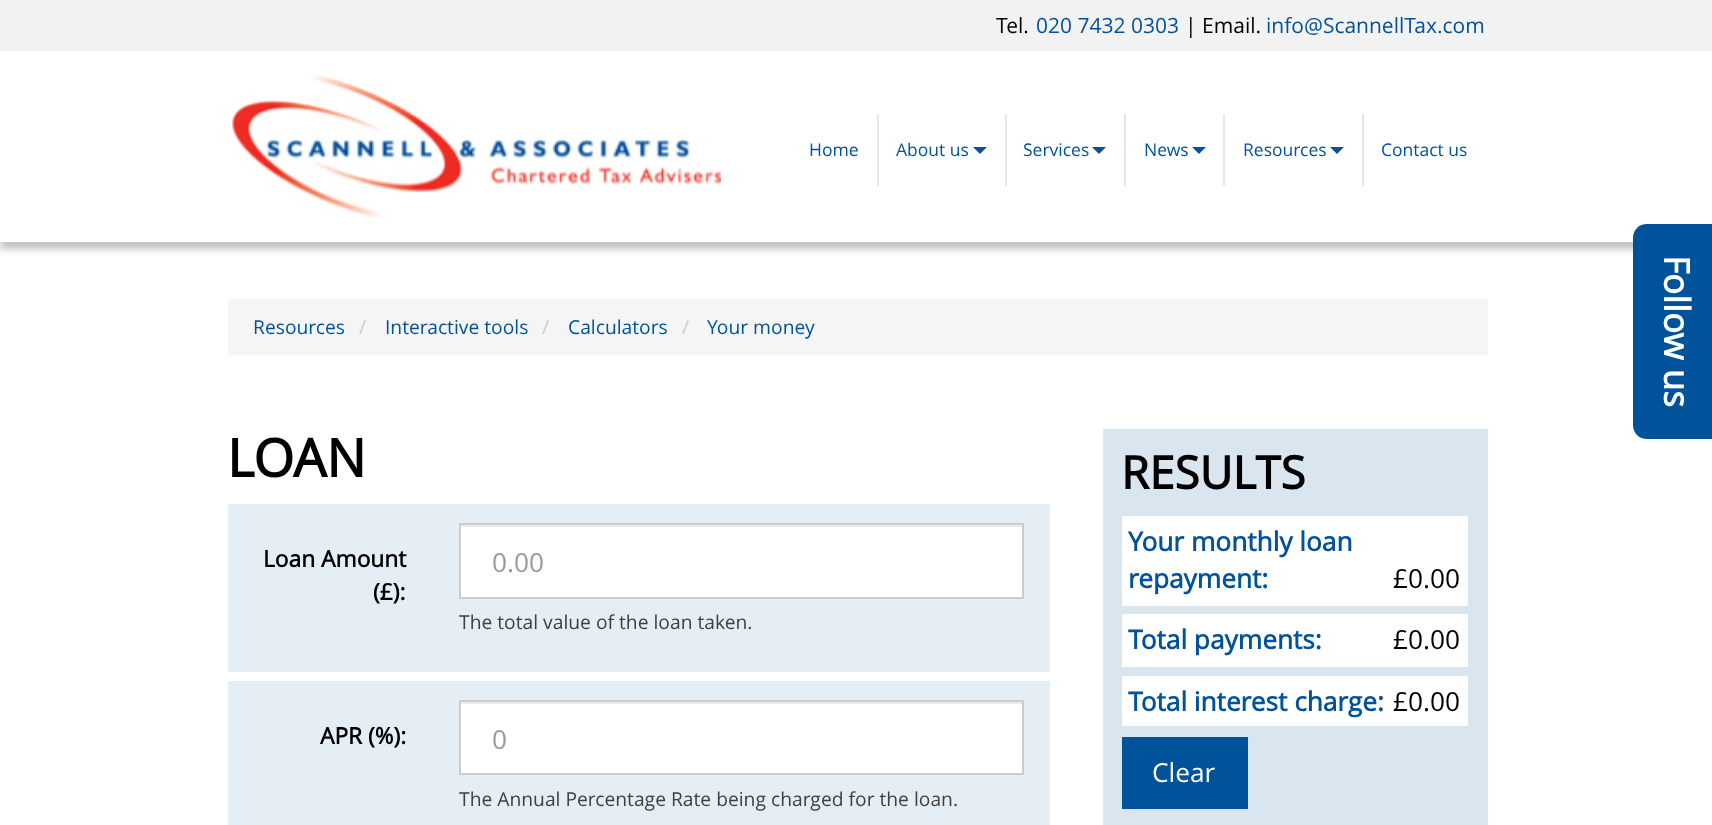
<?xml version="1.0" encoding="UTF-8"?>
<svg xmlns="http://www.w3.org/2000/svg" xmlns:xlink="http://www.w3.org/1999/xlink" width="1712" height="825">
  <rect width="100%" height="100%" fill="#ffffff" />
  <rect y="7" width="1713" height="242" fill="#000000" fill-opacity="0.24" filter="blur(3.5px)" />
  <rect y="51" width="1712" height="191" fill="#ffffff" />
  <rect width="1712" height="51" fill="#f2f2f2" />
  <image x="232" y="74" width="489" height="144" xlink:href="image1.png" />
  <rect x="877" y="114" width="2" height="72" fill="#e6e6e6" />
  <path d="M 973 147 h 14 l -7 7 z" fill="#00529b" />
  <rect x="1005" y="114" width="2" height="72" fill="#e6e6e6" />
  <path d="M 1092 147 h 14 l -7 7 z" fill="#00529b" />
  <rect x="1124" y="114" width="2" height="72" fill="#e6e6e6" />
  <path d="M 1192 147 h 14 l -7 7 z" fill="#00529b" />
  <rect x="1223" y="114" width="2" height="72" fill="#e6e6e6" />
  <path d="M 1330 147 h 14 l -7 7 z" fill="#00529b" />
  <rect x="1362" y="114" width="2" height="72" fill="#e6e6e6" />
  <rect x="228" y="299" width="1260" height="56" fill="#f5f5f5" />
  <rect x="228" y="504" width="822" height="168" fill="#e6eef5" />
  <rect x="461" y="527" width="561" height="70" fill="#ffffff" />
  <rect x="460" y="525" width="562" height="2" fill="#ececec" />
  <rect x="460" y="524" width="563" height="74" fill="none" stroke="#cccccc" stroke-width="2" />
  <rect x="228" y="681" width="822" height="144" fill="#e6eef5" />
  <rect x="461" y="704" width="561" height="69" fill="#ffffff" />
  <rect x="460" y="702" width="562" height="2" fill="#ececec" />
  <rect x="460" y="701" width="563" height="73" fill="none" stroke="#cccccc" stroke-width="2" />
  <rect x="1103" y="429" width="385" height="396" fill="#d9e6f0" />
  <rect x="1122" y="516" width="346" height="90" fill="#ffffff" />
  <rect x="1122" y="614" width="346" height="53" fill="#ffffff" />
  <rect x="1122" y="676" width="346" height="50" fill="#ffffff" />
  <rect x="1122" y="737" width="126" height="72" fill="#00529b" />
  <path d="M 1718 224 v 215 h -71 c -8 0 -14 -6 -14 -14 v -187 c 0 -8 6 -14 14 -14 z" fill="#00529b" />
  <text x="996" y="33" style="font-family: Open Sans; font-size: 21px; fill: #000000">Tel.</text>
  <text x="1036" y="33" style="font-family: Open Sans; font-size: 21px; fill: #00529b">020 7432 0303</text>
  <text x="1185" y="33" style="font-family: Open Sans; font-size: 21px; fill: #000000">| Email.</text>
  <text x="1266" y="33" style="font-family: Open Sans; font-size: 21px; fill: #00529b">info@ScannellTax.com</text>
  <text x="809" y="156" style="font-family: Open Sans; font-size: 17.5px; fill: #00529b">Home</text>
  <text x="896" y="156" style="font-family: Open Sans; font-size: 17.5px; fill: #00529b">About us</text>
  <text x="1023" y="156" style="font-family: Open Sans; font-size: 17.5px; fill: #00529b">Services</text>
  <text x="1144" y="156" style="font-family: Open Sans; font-size: 17.5px; fill: #00529b">News</text>
  <text x="1243" y="156" style="font-family: Open Sans; font-size: 17.5px; fill: #00529b">Resources</text>
  <text x="1381" y="156" style="font-family: Open Sans; font-size: 17.5px; fill: #00529b">Contact us</text>
  <text x="253" y="334" style="font-family: Open Sans; font-size: 19.25px; fill: #00529b">Resources</text>
  <text x="359" y="334" style="font-family: Open Sans; font-size: 19.25px; fill: #cccccc">/</text>
  <text x="385" y="334" style="font-family: Open Sans; font-size: 19.25px; fill: #00529b">Interactive tools</text>
  <text x="542" y="334" style="font-family: Open Sans; font-size: 19.25px; fill: #cccccc">/</text>
  <text x="568" y="334" style="font-family: Open Sans; font-size: 19.25px; fill: #00529b">Calculators</text>
  <text x="682" y="334" style="font-family: Open Sans; font-size: 19.25px; fill: #cccccc">/</text>
  <text x="707" y="334" style="font-family: Open Sans; font-size: 19.25px; fill: #00529b">Your money</text>
  <text x="227" y="477" style="font-family: Open Sans; font-size: 52.5px; font-weight: bold; fill: #000000">LOAN</text>
  <text x="263" y="567" style="font-family: Open Sans; font-size: 22.75px; font-weight: bold; fill: #000000">Loan Amount</text>
  <text x="373" y="600" style="font-family: Open Sans; font-size: 22.75px; font-weight: bold; fill: #000000">(£):</text>
  <text x="492" y="572" style="font-family: Open Sans; font-size: 26.25px; fill: #999999">0.00</text>
  <text x="459" y="629" style="font-family: Open Sans; font-size: 19.25px; fill: #404040">The total value of the loan taken.</text>
  <text x="320" y="744" style="font-family: Open Sans; font-size: 22.75px; font-weight: bold; fill: #000000">APR (%):</text>
  <text x="492" y="749" style="font-family: Open Sans; font-size: 26.25px; fill: #999999">0</text>
  <text x="459" y="806" style="font-family: Open Sans; font-size: 19.25px; fill: #404040">The Annual Percentage Rate being charged for the loan.</text>
  <text x="1121" y="489" style="font-family: Open Sans; font-size: 45.5px; font-weight: bold; fill: #000000">RESULTS</text>
  <text x="1128" y="551" style="font-family: Open Sans; font-size: 26.25px; font-weight: bold; fill: #00529b">Your monthly loan</text>
  <text x="1128" y="588" style="font-family: Open Sans; font-size: 26.25px; font-weight: bold; fill: #00529b">repayment:</text>
  <text x="1393" y="588" style="font-family: Open Sans; font-size: 26.25px; fill: #000000">£0.00</text>
  <text x="1128" y="649" style="font-family: Open Sans; font-size: 26.25px; font-weight: bold; fill: #00529b">Total payments:</text>
  <text x="1393" y="649" style="font-family: Open Sans; font-size: 26.25px; fill: #000000">£0.00</text>
  <text x="1128" y="711" style="font-family: Open Sans; font-size: 26.25px; font-weight: bold; fill: #00529b">Total interest charge:</text>
  <text x="1393" y="711" style="font-family: Open Sans; font-size: 26.25px; fill: #000000">£0.00</text>
  <text x="1152" y="782" style="font-family: Open Sans; font-size: 26.25px; fill: #ffffff">Clear</text>
  <text x="1664" y="255" transform="rotate(90 1664 255)" style="font-family: Open Sans; font-size: 35px; font-weight: bold; fill: #ffffff">Follow us</text>
</svg>
